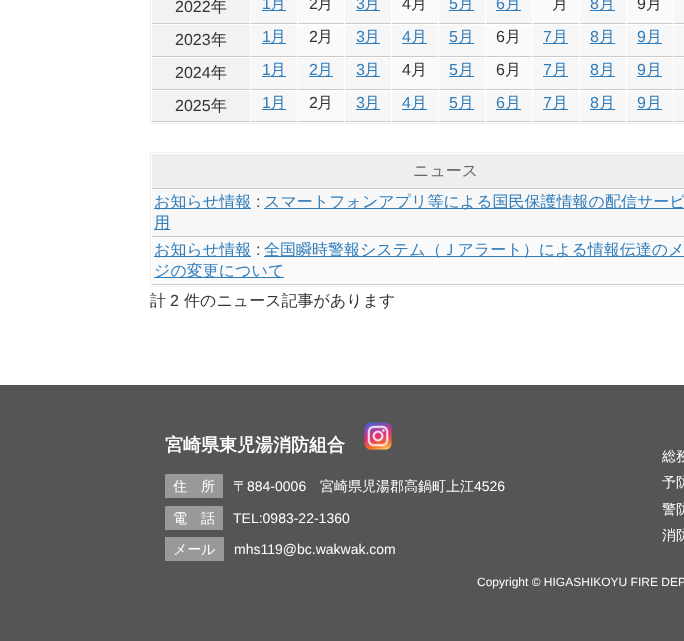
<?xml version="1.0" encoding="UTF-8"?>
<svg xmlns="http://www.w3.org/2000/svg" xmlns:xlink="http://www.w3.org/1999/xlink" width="684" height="641">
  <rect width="100%" height="100%" fill="#ffffff" />
  <rect x="150.5" y="-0.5" width="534" height="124" fill="none" stroke="#eeeeee" />
  <rect x="152" width="98" height="23" fill="#f2f2f2" />
  <rect x="152" y="23" width="98" height="1" fill="#cacaca" />
  <rect x="251" width="46" height="23" fill="#f7f7f7" />
  <rect x="251" y="23" width="46" height="1" fill="#cacaca" />
  <rect x="262" y="10" width="24" height="1" fill="#2f7cbb" />
  <rect x="298" width="46" height="23" fill="#fafafa" />
  <rect x="298" y="23" width="46" height="1" fill="#cacaca" />
  <rect x="345" width="46" height="23" fill="#f7f7f7" />
  <rect x="345" y="23" width="46" height="1" fill="#cacaca" />
  <rect x="356" y="10" width="24" height="1" fill="#2f7cbb" />
  <rect x="392" width="46" height="23" fill="#fafafa" />
  <rect x="392" y="23" width="46" height="1" fill="#cacaca" />
  <rect x="439" width="46" height="23" fill="#f7f7f7" />
  <rect x="439" y="23" width="46" height="1" fill="#cacaca" />
  <rect x="449" y="10" width="25" height="1" fill="#2f7cbb" />
  <rect x="486" width="46" height="23" fill="#f7f7f7" />
  <rect x="486" y="23" width="46" height="1" fill="#cacaca" />
  <rect x="496" y="10" width="25" height="1" fill="#2f7cbb" />
  <rect x="533" width="46" height="23" fill="#fafafa" />
  <rect x="533" y="23" width="46" height="1" fill="#cacaca" />
  <rect x="580" width="46" height="23" fill="#f7f7f7" />
  <rect x="580" y="23" width="46" height="1" fill="#cacaca" />
  <rect x="590" y="10" width="25" height="1" fill="#2f7cbb" />
  <rect x="627" width="46" height="23" fill="#fafafa" />
  <rect x="627" y="23" width="46" height="1" fill="#cacaca" />
  <rect x="674" width="10" height="23" fill="#f7f7f7" />
  <rect x="674" y="23" width="10" height="1" fill="#cacaca" />
  <rect x="152" y="25" width="98" height="31" fill="#f2f2f2" />
  <rect x="152" y="56" width="98" height="1" fill="#cacaca" />
  <rect x="251" y="25" width="46" height="31" fill="#f7f7f7" />
  <rect x="251" y="56" width="46" height="1" fill="#cacaca" />
  <rect x="262" y="43" width="24" height="1" fill="#2f7cbb" />
  <rect x="298" y="25" width="46" height="31" fill="#fafafa" />
  <rect x="298" y="56" width="46" height="1" fill="#cacaca" />
  <rect x="345" y="25" width="46" height="31" fill="#f7f7f7" />
  <rect x="345" y="56" width="46" height="1" fill="#cacaca" />
  <rect x="356" y="43" width="24" height="1" fill="#2f7cbb" />
  <rect x="392" y="25" width="46" height="31" fill="#f7f7f7" />
  <rect x="392" y="56" width="46" height="1" fill="#cacaca" />
  <rect x="402" y="43" width="25" height="1" fill="#2f7cbb" />
  <rect x="439" y="25" width="46" height="31" fill="#f7f7f7" />
  <rect x="439" y="56" width="46" height="1" fill="#cacaca" />
  <rect x="449" y="43" width="25" height="1" fill="#2f7cbb" />
  <rect x="486" y="25" width="46" height="31" fill="#fafafa" />
  <rect x="486" y="56" width="46" height="1" fill="#cacaca" />
  <rect x="533" y="25" width="46" height="31" fill="#f7f7f7" />
  <rect x="533" y="56" width="46" height="1" fill="#cacaca" />
  <rect x="543" y="43" width="25" height="1" fill="#2f7cbb" />
  <rect x="580" y="25" width="46" height="31" fill="#f7f7f7" />
  <rect x="580" y="56" width="46" height="1" fill="#cacaca" />
  <rect x="590" y="43" width="25" height="1" fill="#2f7cbb" />
  <rect x="627" y="25" width="46" height="31" fill="#f7f7f7" />
  <rect x="627" y="56" width="46" height="1" fill="#cacaca" />
  <rect x="637" y="43" width="25" height="1" fill="#2f7cbb" />
  <rect x="674" y="25" width="10" height="31" fill="#f7f7f7" />
  <rect x="674" y="56" width="10" height="1" fill="#cacaca" />
  <rect x="152" y="58" width="98" height="31" fill="#f2f2f2" />
  <rect x="152" y="89" width="98" height="1" fill="#cacaca" />
  <rect x="251" y="58" width="46" height="31" fill="#f7f7f7" />
  <rect x="251" y="89" width="46" height="1" fill="#cacaca" />
  <rect x="262" y="76" width="24" height="1" fill="#2f7cbb" />
  <rect x="298" y="58" width="46" height="31" fill="#f7f7f7" />
  <rect x="298" y="89" width="46" height="1" fill="#cacaca" />
  <rect x="309" y="76" width="24" height="1" fill="#2f7cbb" />
  <rect x="345" y="58" width="46" height="31" fill="#f7f7f7" />
  <rect x="345" y="89" width="46" height="1" fill="#cacaca" />
  <rect x="356" y="76" width="24" height="1" fill="#2f7cbb" />
  <rect x="392" y="58" width="46" height="31" fill="#fafafa" />
  <rect x="392" y="89" width="46" height="1" fill="#cacaca" />
  <rect x="439" y="58" width="46" height="31" fill="#f7f7f7" />
  <rect x="439" y="89" width="46" height="1" fill="#cacaca" />
  <rect x="449" y="76" width="25" height="1" fill="#2f7cbb" />
  <rect x="486" y="58" width="46" height="31" fill="#fafafa" />
  <rect x="486" y="89" width="46" height="1" fill="#cacaca" />
  <rect x="533" y="58" width="46" height="31" fill="#f7f7f7" />
  <rect x="533" y="89" width="46" height="1" fill="#cacaca" />
  <rect x="543" y="76" width="25" height="1" fill="#2f7cbb" />
  <rect x="580" y="58" width="46" height="31" fill="#f7f7f7" />
  <rect x="580" y="89" width="46" height="1" fill="#cacaca" />
  <rect x="590" y="76" width="25" height="1" fill="#2f7cbb" />
  <rect x="627" y="58" width="46" height="31" fill="#f7f7f7" />
  <rect x="627" y="89" width="46" height="1" fill="#cacaca" />
  <rect x="637" y="76" width="25" height="1" fill="#2f7cbb" />
  <rect x="674" y="58" width="10" height="31" fill="#f7f7f7" />
  <rect x="674" y="89" width="10" height="1" fill="#cacaca" />
  <rect x="152" y="91" width="98" height="30" fill="#f2f2f2" />
  <rect x="152" y="121" width="98" height="1" fill="#cacaca" />
  <rect x="251" y="91" width="46" height="30" fill="#f7f7f7" />
  <rect x="251" y="121" width="46" height="1" fill="#cacaca" />
  <rect x="262" y="109" width="24" height="1" fill="#2f7cbb" />
  <rect x="298" y="91" width="46" height="30" fill="#fafafa" />
  <rect x="298" y="121" width="46" height="1" fill="#cacaca" />
  <rect x="345" y="91" width="46" height="30" fill="#f7f7f7" />
  <rect x="345" y="121" width="46" height="1" fill="#cacaca" />
  <rect x="356" y="109" width="24" height="1" fill="#2f7cbb" />
  <rect x="392" y="91" width="46" height="30" fill="#f7f7f7" />
  <rect x="392" y="121" width="46" height="1" fill="#cacaca" />
  <rect x="402" y="109" width="25" height="1" fill="#2f7cbb" />
  <rect x="439" y="91" width="46" height="30" fill="#f7f7f7" />
  <rect x="439" y="121" width="46" height="1" fill="#cacaca" />
  <rect x="449" y="109" width="25" height="1" fill="#2f7cbb" />
  <rect x="486" y="91" width="46" height="30" fill="#f7f7f7" />
  <rect x="486" y="121" width="46" height="1" fill="#cacaca" />
  <rect x="496" y="109" width="25" height="1" fill="#2f7cbb" />
  <rect x="533" y="91" width="46" height="30" fill="#f7f7f7" />
  <rect x="533" y="121" width="46" height="1" fill="#cacaca" />
  <rect x="543" y="109" width="25" height="1" fill="#2f7cbb" />
  <rect x="580" y="91" width="46" height="30" fill="#f7f7f7" />
  <rect x="580" y="121" width="46" height="1" fill="#cacaca" />
  <rect x="590" y="109" width="25" height="1" fill="#2f7cbb" />
  <rect x="627" y="91" width="46" height="30" fill="#f7f7f7" />
  <rect x="627" y="121" width="46" height="1" fill="#cacaca" />
  <rect x="637" y="109" width="25" height="1" fill="#2f7cbb" />
  <rect x="674" y="91" width="10" height="30" fill="#f7f7f7" />
  <rect x="674" y="121" width="10" height="1" fill="#cacaca" />
  <rect x="150.5" y="152.5" width="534" height="134" fill="none" stroke="#eeeeee" />
  <rect x="152" y="154" width="532" height="34" fill="#eeeeee" />
  <rect x="152" y="188" width="532" height="1" fill="#cccccc" />
  <rect x="152" y="190" width="532" height="46" fill="#f7f7f7" />
  <rect x="152" y="236" width="532" height="1" fill="#cacaca" />
  <rect x="154" y="208" width="97" height="1" fill="#2f7cbb" />
  <rect x="264" y="208" width="420" height="1" fill="#2f7cbb" />
  <rect x="154" y="229" width="16" height="1" fill="#2f7cbb" />
  <rect x="152" y="238" width="532" height="46" fill="#fafafa" />
  <rect x="152" y="284" width="532" height="1" fill="#cacaca" />
  <rect x="154" y="256" width="97" height="1" fill="#2f7cbb" />
  <rect x="264" y="256" width="420" height="1" fill="#2f7cbb" />
  <rect x="154" y="277" width="130" height="1" fill="#2f7cbb" />
  <rect y="385" width="684" height="256" fill="#555555" />
  <image x="364" y="422" width="29" height="29" xlink:href="image1.png" />
  <rect x="165" y="474" width="58" height="24" fill="#999999" />
  <rect x="165" y="506" width="58" height="24" fill="#999999" />
  <rect x="165" y="537" width="59" height="24" fill="#999999" />
  <text x="175" y="12" style="font-family: Liberation Sans; font-size: 16px; fill: #333333">2022</text>
  <text x="211" y="12" style="font-family: WenQuanYi Zen Hei; font-size: 16px; font-weight: 500; fill: #333333">年</text>
  <text x="262" y="9" style="font-family: Liberation Sans; font-size: 16px; fill: #2f7cbb">1</text>
  <text x="270" y="9" style="font-family: WenQuanYi Zen Hei; font-size: 16px; font-weight: 500; fill: #2f7cbb">月</text>
  <text x="309" y="9" style="font-family: Liberation Sans; font-size: 16px; fill: #333333">2</text>
  <text x="317" y="9" style="font-family: WenQuanYi Zen Hei; font-size: 16px; font-weight: 500; fill: #333333">月</text>
  <text x="356" y="9" style="font-family: Liberation Sans; font-size: 16px; fill: #2f7cbb">3</text>
  <text x="364" y="9" style="font-family: WenQuanYi Zen Hei; font-size: 16px; font-weight: 500; fill: #2f7cbb">月</text>
  <text x="402" y="9" style="font-family: Liberation Sans; font-size: 16px; fill: #333333">4</text>
  <text x="411" y="9" style="font-family: WenQuanYi Zen Hei; font-size: 16px; font-weight: 500; fill: #333333">月</text>
  <text x="449" y="9" style="font-family: Liberation Sans; font-size: 16px; fill: #2f7cbb">5</text>
  <text x="458" y="9" style="font-family: WenQuanYi Zen Hei; font-size: 16px; font-weight: 500; fill: #2f7cbb">月</text>
  <text x="496" y="9" style="font-family: Liberation Sans; font-size: 16px; fill: #2f7cbb">6</text>
  <text x="505" y="9" style="font-family: WenQuanYi Zen Hei; font-size: 16px; font-weight: 500; fill: #2f7cbb">月</text>
  <text x="552" y="9" style="font-family: WenQuanYi Zen Hei; font-size: 16px; font-weight: 500; fill: #333333">月</text>
  <text x="590" y="9" style="font-family: Liberation Sans; font-size: 16px; fill: #2f7cbb">8</text>
  <text x="599" y="9" style="font-family: WenQuanYi Zen Hei; font-size: 16px; font-weight: 500; fill: #2f7cbb">月</text>
  <text x="637" y="9" style="font-family: Liberation Sans; font-size: 16px; fill: #333333">9</text>
  <text x="646" y="9" style="font-family: WenQuanYi Zen Hei; font-size: 16px; font-weight: 500; fill: #333333">月</text>
  <text x="175" y="45" style="font-family: Liberation Sans; font-size: 16px; fill: #333333">2023</text>
  <text x="211" y="45" style="font-family: WenQuanYi Zen Hei; font-size: 16px; font-weight: 500; fill: #333333">年</text>
  <text x="262" y="42" style="font-family: Liberation Sans; font-size: 16px; fill: #2f7cbb">1</text>
  <text x="270" y="42" style="font-family: WenQuanYi Zen Hei; font-size: 16px; font-weight: 500; fill: #2f7cbb">月</text>
  <text x="309" y="42" style="font-family: Liberation Sans; font-size: 16px; fill: #333333">2</text>
  <text x="317" y="42" style="font-family: WenQuanYi Zen Hei; font-size: 16px; font-weight: 500; fill: #333333">月</text>
  <text x="356" y="42" style="font-family: Liberation Sans; font-size: 16px; fill: #2f7cbb">3</text>
  <text x="364" y="42" style="font-family: WenQuanYi Zen Hei; font-size: 16px; font-weight: 500; fill: #2f7cbb">月</text>
  <text x="402" y="42" style="font-family: Liberation Sans; font-size: 16px; fill: #2f7cbb">4</text>
  <text x="411" y="42" style="font-family: WenQuanYi Zen Hei; font-size: 16px; font-weight: 500; fill: #2f7cbb">月</text>
  <text x="449" y="42" style="font-family: Liberation Sans; font-size: 16px; fill: #2f7cbb">5</text>
  <text x="458" y="42" style="font-family: WenQuanYi Zen Hei; font-size: 16px; font-weight: 500; fill: #2f7cbb">月</text>
  <text x="496" y="42" style="font-family: Liberation Sans; font-size: 16px; fill: #333333">6</text>
  <text x="505" y="42" style="font-family: WenQuanYi Zen Hei; font-size: 16px; font-weight: 500; fill: #333333">月</text>
  <text x="543" y="42" style="font-family: Liberation Sans; font-size: 16px; fill: #2f7cbb">7</text>
  <text x="552" y="42" style="font-family: WenQuanYi Zen Hei; font-size: 16px; font-weight: 500; fill: #2f7cbb">月</text>
  <text x="590" y="42" style="font-family: Liberation Sans; font-size: 16px; fill: #2f7cbb">8</text>
  <text x="599" y="42" style="font-family: WenQuanYi Zen Hei; font-size: 16px; font-weight: 500; fill: #2f7cbb">月</text>
  <text x="637" y="42" style="font-family: Liberation Sans; font-size: 16px; fill: #2f7cbb">9</text>
  <text x="646" y="42" style="font-family: WenQuanYi Zen Hei; font-size: 16px; font-weight: 500; fill: #2f7cbb">月</text>
  <text x="175" y="78" style="font-family: Liberation Sans; font-size: 16px; fill: #333333">2024</text>
  <text x="211" y="78" style="font-family: WenQuanYi Zen Hei; font-size: 16px; font-weight: 500; fill: #333333">年</text>
  <text x="262" y="75" style="font-family: Liberation Sans; font-size: 16px; fill: #2f7cbb">1</text>
  <text x="270" y="75" style="font-family: WenQuanYi Zen Hei; font-size: 16px; font-weight: 500; fill: #2f7cbb">月</text>
  <text x="309" y="75" style="font-family: Liberation Sans; font-size: 16px; fill: #2f7cbb">2</text>
  <text x="317" y="75" style="font-family: WenQuanYi Zen Hei; font-size: 16px; font-weight: 500; fill: #2f7cbb">月</text>
  <text x="356" y="75" style="font-family: Liberation Sans; font-size: 16px; fill: #2f7cbb">3</text>
  <text x="364" y="75" style="font-family: WenQuanYi Zen Hei; font-size: 16px; font-weight: 500; fill: #2f7cbb">月</text>
  <text x="402" y="75" style="font-family: Liberation Sans; font-size: 16px; fill: #333333">4</text>
  <text x="411" y="75" style="font-family: WenQuanYi Zen Hei; font-size: 16px; font-weight: 500; fill: #333333">月</text>
  <text x="449" y="75" style="font-family: Liberation Sans; font-size: 16px; fill: #2f7cbb">5</text>
  <text x="458" y="75" style="font-family: WenQuanYi Zen Hei; font-size: 16px; font-weight: 500; fill: #2f7cbb">月</text>
  <text x="496" y="75" style="font-family: Liberation Sans; font-size: 16px; fill: #333333">6</text>
  <text x="505" y="75" style="font-family: WenQuanYi Zen Hei; font-size: 16px; font-weight: 500; fill: #333333">月</text>
  <text x="543" y="75" style="font-family: Liberation Sans; font-size: 16px; fill: #2f7cbb">7</text>
  <text x="552" y="75" style="font-family: WenQuanYi Zen Hei; font-size: 16px; font-weight: 500; fill: #2f7cbb">月</text>
  <text x="590" y="75" style="font-family: Liberation Sans; font-size: 16px; fill: #2f7cbb">8</text>
  <text x="599" y="75" style="font-family: WenQuanYi Zen Hei; font-size: 16px; font-weight: 500; fill: #2f7cbb">月</text>
  <text x="637" y="75" style="font-family: Liberation Sans; font-size: 16px; fill: #2f7cbb">9</text>
  <text x="646" y="75" style="font-family: WenQuanYi Zen Hei; font-size: 16px; font-weight: 500; fill: #2f7cbb">月</text>
  <text x="175" y="111" style="font-family: Liberation Sans; font-size: 16px; fill: #333333">2025</text>
  <text x="211" y="111" style="font-family: WenQuanYi Zen Hei; font-size: 16px; font-weight: 500; fill: #333333">年</text>
  <text x="262" y="108" style="font-family: Liberation Sans; font-size: 16px; fill: #2f7cbb">1</text>
  <text x="270" y="108" style="font-family: WenQuanYi Zen Hei; font-size: 16px; font-weight: 500; fill: #2f7cbb">月</text>
  <text x="309" y="108" style="font-family: Liberation Sans; font-size: 16px; fill: #333333">2</text>
  <text x="317" y="108" style="font-family: WenQuanYi Zen Hei; font-size: 16px; font-weight: 500; fill: #333333">月</text>
  <text x="356" y="108" style="font-family: Liberation Sans; font-size: 16px; fill: #2f7cbb">3</text>
  <text x="364" y="108" style="font-family: WenQuanYi Zen Hei; font-size: 16px; font-weight: 500; fill: #2f7cbb">月</text>
  <text x="402" y="108" style="font-family: Liberation Sans; font-size: 16px; fill: #2f7cbb">4</text>
  <text x="411" y="108" style="font-family: WenQuanYi Zen Hei; font-size: 16px; font-weight: 500; fill: #2f7cbb">月</text>
  <text x="449" y="108" style="font-family: Liberation Sans; font-size: 16px; fill: #2f7cbb">5</text>
  <text x="458" y="108" style="font-family: WenQuanYi Zen Hei; font-size: 16px; font-weight: 500; fill: #2f7cbb">月</text>
  <text x="496" y="108" style="font-family: Liberation Sans; font-size: 16px; fill: #2f7cbb">6</text>
  <text x="505" y="108" style="font-family: WenQuanYi Zen Hei; font-size: 16px; font-weight: 500; fill: #2f7cbb">月</text>
  <text x="543" y="108" style="font-family: Liberation Sans; font-size: 16px; fill: #2f7cbb">7</text>
  <text x="552" y="108" style="font-family: WenQuanYi Zen Hei; font-size: 16px; font-weight: 500; fill: #2f7cbb">月</text>
  <text x="590" y="108" style="font-family: Liberation Sans; font-size: 16px; fill: #2f7cbb">8</text>
  <text x="599" y="108" style="font-family: WenQuanYi Zen Hei; font-size: 16px; font-weight: 500; fill: #2f7cbb">月</text>
  <text x="637" y="108" style="font-family: Liberation Sans; font-size: 16px; fill: #2f7cbb">9</text>
  <text x="646" y="108" style="font-family: WenQuanYi Zen Hei; font-size: 16px; font-weight: 500; fill: #2f7cbb">月</text>
  <text x="413" y="176" style="font-family: WenQuanYi Zen Hei; font-size: 16px; font-weight: 500; fill: #666666">ニュース</text>
  <text x="154" y="207" style="font-family: WenQuanYi Zen Hei; font-size: 16px; font-weight: 500; fill: #2f7cbb">お知らせ情報</text>
  <text x="256" y="207" style="font-family: Liberation Sans; font-size: 16px; fill: #333333">:</text>
  <text x="264" y="207" style="font-family: WenQuanYi Zen Hei; font-size: 16px; font-weight: 500; fill: #2f7cbb">スマートフォンアプリ等による国民保護情報の配信サービ</text>
  <text x="154" y="228" style="font-family: WenQuanYi Zen Hei; font-size: 16px; font-weight: 500; fill: #2f7cbb">用</text>
  <text x="154" y="255" style="font-family: WenQuanYi Zen Hei; font-size: 16px; font-weight: 500; fill: #2f7cbb">お知らせ情報</text>
  <text x="256" y="255" style="font-family: Liberation Sans; font-size: 16px; fill: #333333">:</text>
  <text x="264" y="255" style="font-family: WenQuanYi Zen Hei; font-size: 16px; font-weight: 500; fill: #2f7cbb">全国瞬時警報システム（Ｊアラート）による情報伝達のメ</text>
  <text x="154" y="276" style="font-family: WenQuanYi Zen Hei; font-size: 16px; font-weight: 500; fill: #2f7cbb">ジの変更について</text>
  <text x="150" y="306" style="font-family: WenQuanYi Zen Hei; font-size: 16px; font-weight: 500; fill: #333333">計</text>
  <text x="170" y="306" style="font-family: Liberation Sans; font-size: 16px; fill: #333333">2</text>
  <text x="184" y="306" style="font-family: WenQuanYi Zen Hei; font-size: 16px; font-weight: 500; fill: #333333">件のニュース記事があります</text>
  <text x="165" y="451" style="font-family: WenQuanYi Zen Hei; font-size: 18px; font-weight: bold; fill: #ffffff">宮崎県東児湯消防組合</text>
  <text x="173" y="491" style="font-family: WenQuanYi Zen Hei; font-size: 14px; font-weight: 500; fill: #ffffff">住　所</text>
  <text x="233" y="491" style="font-family: WenQuanYi Zen Hei; font-size: 14px; font-weight: 500; fill: #ffffff">〒</text>
  <text x="247" y="491" style="font-family: Liberation Sans; font-size: 14px; fill: #ffffff">884-0006</text>
  <text x="320" y="491" style="font-family: WenQuanYi Zen Hei; font-size: 14px; font-weight: 500; fill: #ffffff">宮崎県児湯郡高鍋町上江</text>
  <text x="474" y="491" style="font-family: Liberation Sans; font-size: 14px; fill: #ffffff">4526</text>
  <text x="173" y="523" style="font-family: WenQuanYi Zen Hei; font-size: 14px; font-weight: 500; fill: #ffffff">電　話</text>
  <text x="233" y="523" style="font-family: Liberation Sans; font-size: 14px; fill: #ffffff">TEL:0983-22-1360</text>
  <text x="173" y="554" style="font-family: WenQuanYi Zen Hei; font-size: 14px; font-weight: 500; fill: #ffffff">メール</text>
  <text x="234" y="554" style="font-family: Liberation Sans; font-size: 14px; fill: #ffffff">mhs119@bc.wakwak.com</text>
  <text x="662" y="461" style="font-family: WenQuanYi Zen Hei; font-size: 14px; font-weight: 500; fill: #ffffff">総務</text>
  <text x="662" y="487" style="font-family: WenQuanYi Zen Hei; font-size: 14px; font-weight: 500; fill: #ffffff">予防</text>
  <text x="662" y="514" style="font-family: WenQuanYi Zen Hei; font-size: 14px; font-weight: 500; fill: #ffffff">警防</text>
  <text x="662" y="540" style="font-family: WenQuanYi Zen Hei; font-size: 14px; font-weight: 500; fill: #ffffff">消防</text>
  <text x="477" y="586" style="font-family: Liberation Sans; font-size: 12px; fill: #ffffff">Copyright © HIGASHIKOYU FIRE DEP</text>
</svg>
